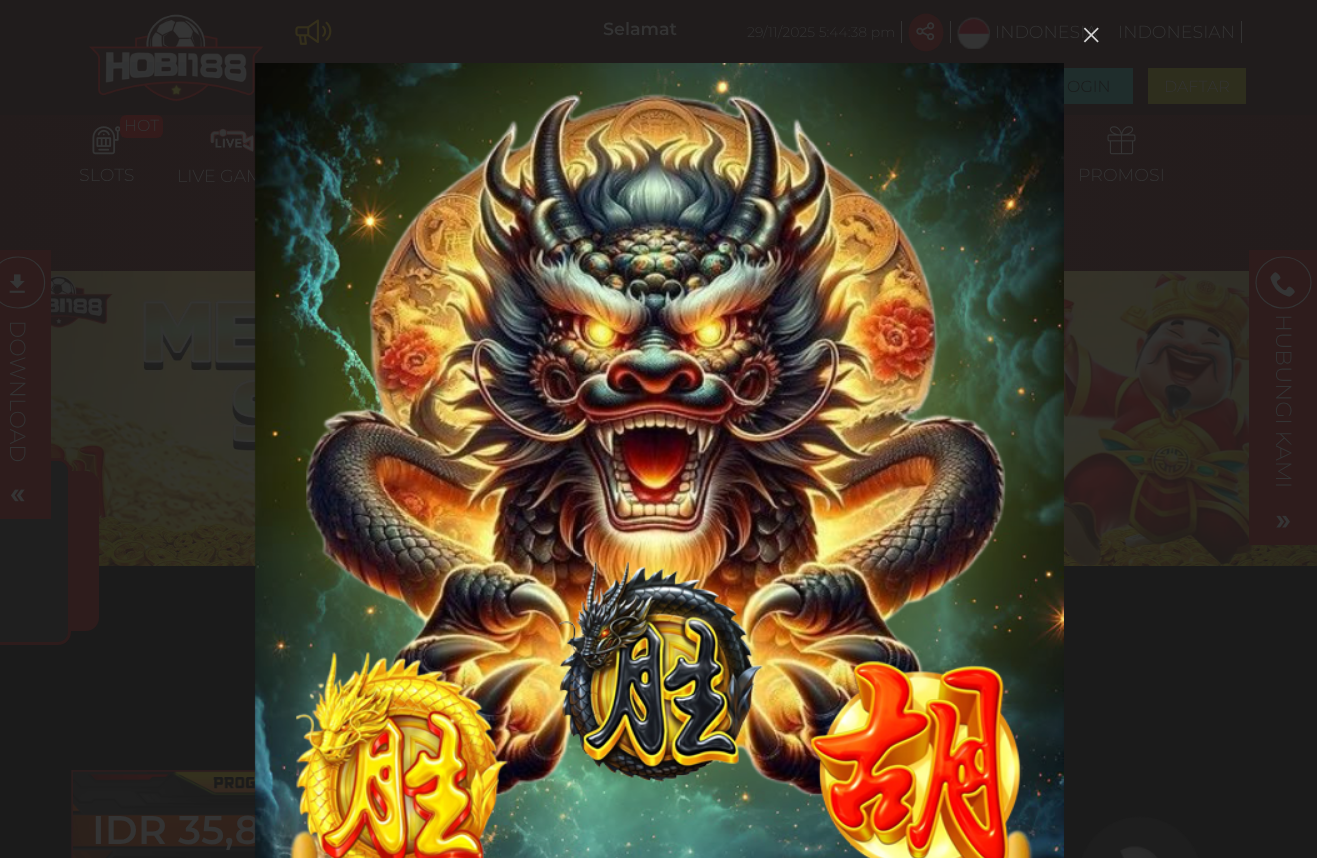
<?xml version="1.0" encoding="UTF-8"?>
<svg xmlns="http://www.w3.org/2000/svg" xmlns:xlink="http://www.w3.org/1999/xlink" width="1317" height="858">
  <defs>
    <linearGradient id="g1" gradientUnits="userSpaceOnUse" x1="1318" y1="193" x2="-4.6" y2="193"><stop offset="0" stop-color="#231c1c" /><stop offset="0.5" stop-color="#271e1e" /><stop offset="1" stop-color="#231c1c" /></linearGradient>
  </defs>
  <rect width="100%" height="100%" fill="#1b1b1b" />
  <rect width="1317" height="115" fill="#201c1c" />
  <image x="89" y="14" width="175" height="88" xlink:href="image1.png" />
  <image x="295" y="19" width="37" height="26" xlink:href="image2.png" />
  <rect x="901" y="21" width="1" height="22" fill="#343434" />
  <ellipse cx="926" cy="32.5" rx="17.5" ry="19" fill="#2e1c1c" />
  <image x="916" y="22" width="19" height="19" xlink:href="image3.png" />
  <rect x="950" y="21" width="1" height="22" fill="#343434" />
  <image x="957" y="17" width="33" height="32" xlink:href="image4.png" />
  <rect x="1241" y="21" width="1" height="22" fill="#343434" />
  <rect x="1062" y="68" width="71" height="36" fill="#1f2d2c" />
  <rect x="1148" y="68" width="98" height="36" fill="#2e2e1d" />
  <rect y="115" width="1317" height="156" fill="url(#g1)" />
  <image x="92" y="126" width="28" height="29" xlink:href="image5.png" />
  <rect x="120" y="115" width="43" height="23" rx="6" fill="#341b1b" />
  <image x="210" y="128" width="45" height="24" xlink:href="image6.png" />
  <image x="1107" y="126" width="29" height="29" xlink:href="image7.png" />
  <image x="51" y="271" width="1266" height="295" xlink:href="image14.png" />
  <rect x="-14.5" y="459.5" width="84" height="184" rx="11.5" fill="#1f1f1f" stroke="#2e1c1c" stroke-width="3" />
  <rect y="250" width="51" height="269" fill="#2e1c1c" />
  <path d="M 18 257 c 35.5 0 35.5 51 0 51 c -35.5 0 -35.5 -51 0 -51 z" fill="none" stroke="#343434" stroke-width="1.2" />
  <image x="9" y="274" width="16" height="19" xlink:href="image8.png" />
  <image x="11" y="489" width="14" height="13" xlink:href="image9.png" />
  <rect x="1249" y="250" width="68" height="295" fill="#2e1c1c" />
  <path d="M 1283.5 257 c 15 0 27.5 11.5 27.5 25.5 c 0 14 -12.5 25.5 -27.5 25.5 c -15 0 -27.5 -11.5 -27.5 -25.5 c 0 -14 12.5 -25.5 27.5 -25.5 z" fill="none" stroke="#343434" stroke-width="1.2" />
  <image x="1270" y="272" width="25" height="25" xlink:href="image12.png" />
  <image x="1276" y="515" width="14" height="13" xlink:href="image13.png" />
  <path d="M 69 471 h 17 c 7 0 13 6 13 13 v 134 c 0 7 -6 13 -13 13 h -17 z" fill="#2e1c1c" />
  <image x="71" y="770" width="186" height="88" xlink:href="image15.png" />
  <image x="1081" y="816" width="118" height="42" xlink:href="image16.png" />
  <text x="603" y="35" style="font-family: Montserrat; font-size: 17.5px; font-weight: 600; fill: #343434">Selamat</text>
  <text x="747" y="37" style="font-family: Montserrat; font-size: 14px; font-weight: 300; fill: #343434">29/11/2025 5:44:38 pm</text>
  <text x="995" y="38" style="font-family: Montserrat; font-size: 17.5px; font-weight: 300; fill: #343434">INDONESIA</text>
  <text x="1118" y="38" style="font-family: Montserrat; font-size: 17.5px; font-weight: 300; fill: #343434">INDONESIAN</text>
  <text x="1067" y="92" style="font-family: Montserrat; font-size: 16px; font-weight: 300; fill: #1b1b1b">OGIN</text>
  <text x="1164" y="92" style="font-family: Montserrat; font-size: 16px; font-weight: 300; fill: #343434">DAFTAR</text>
  <text x="124" y="131" style="font-family: Montserrat; font-size: 16px; font-weight: 300; fill: #343434">HOT</text>
  <text x="79" y="181" style="font-family: Montserrat; font-size: 17.5px; font-weight: 300; fill: #343434">SLOTS</text>
  <text x="177" y="182" style="font-family: Montserrat; font-size: 17.5px; font-weight: 300; fill: #343434">LIVE GAM</text>
  <text x="1078" y="181" style="font-family: Montserrat; font-size: 17.5px; font-weight: 300; fill: #343434">PROMOSI</text>
  <text x="10" y="320" transform="rotate(90 10 320)" style="font-family: Montserrat; font-size: 22px; font-weight: 300; fill: #343434">DOWNLOAD</text>
  <image x="1083" y="27" width="16" height="16" xlink:href="image10.png" />
  <text x="1276" y="314" transform="rotate(90 1276 314)" style="font-family: Montserrat; font-size: 22px; font-weight: 300; fill: #343434">HUBUNGI KAMI</text>
  <text x="92" y="844" style="font-family: Montserrat; font-size: 40px; font-weight: 600; fill: #343434">IDR 35,8</text>
  <image x="254" y="63" width="810" height="795" xlink:href="image11.png" />
</svg>
